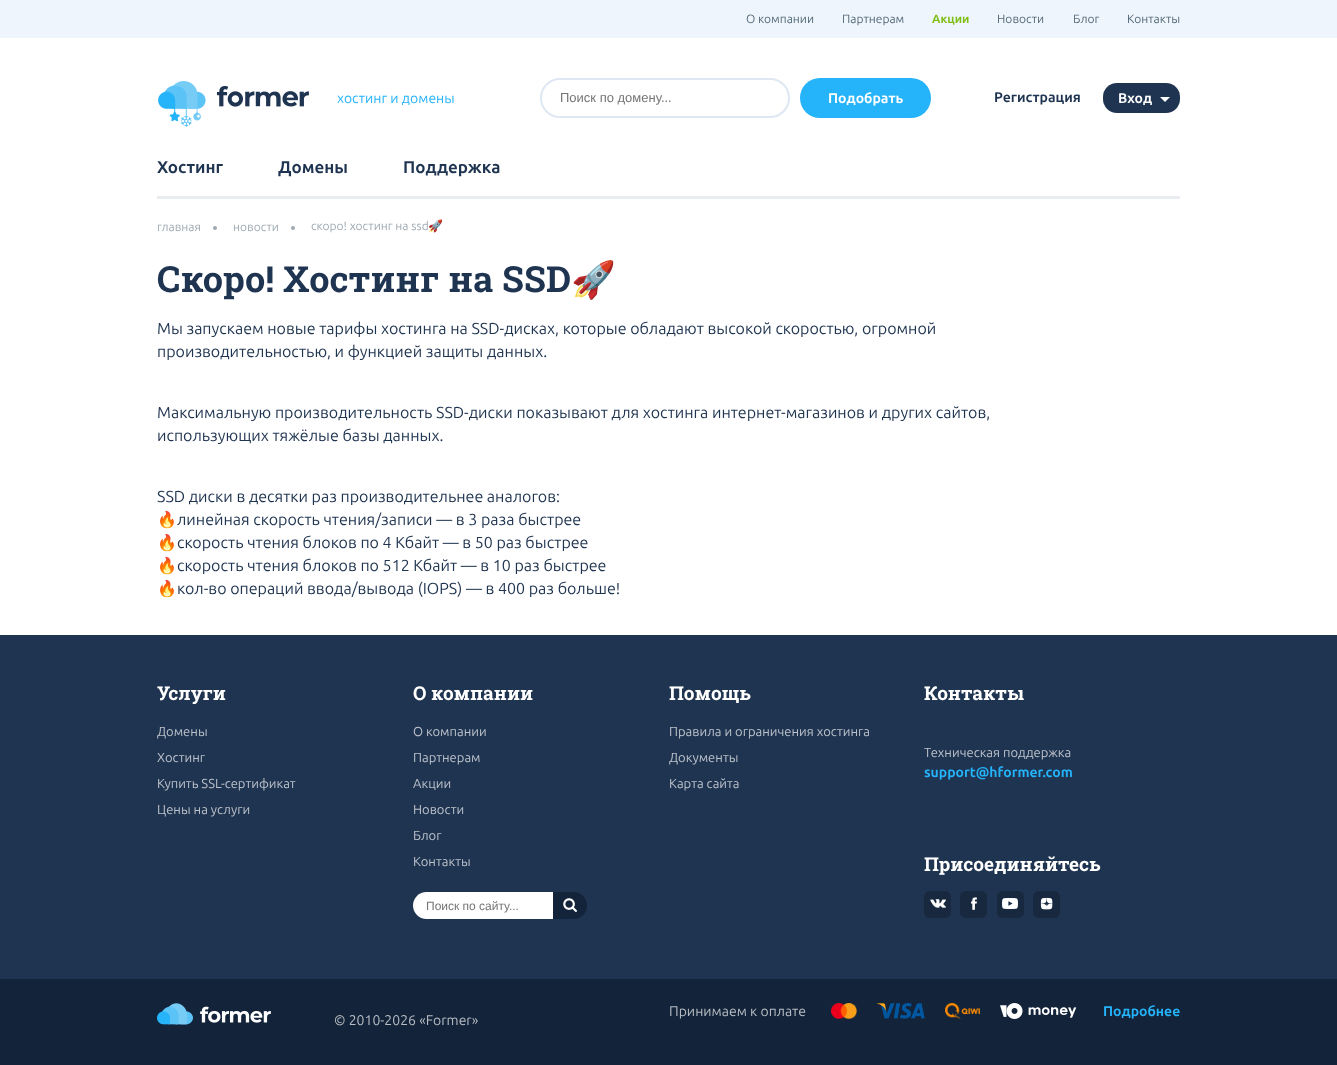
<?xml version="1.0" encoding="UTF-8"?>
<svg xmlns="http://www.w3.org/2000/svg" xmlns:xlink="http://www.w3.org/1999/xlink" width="1337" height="1065">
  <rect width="100%" height="100%" fill="#ffffff" />
  <rect width="1337" height="38" fill="#eef5fd" />
  <image x="158" y="81" width="151" height="46" xlink:href="image1.png" />
  <rect x="541" y="79" width="248" height="38" rx="19" fill="none" stroke="#dee7f3" stroke-width="2" />
  <rect x="800" y="78" width="131" height="40" rx="20" fill="#25b3fa" />
  <rect x="1103" y="83" width="77" height="30" rx="14" fill="#1f3450" />
  <path d="M 1160 97 h 10 l -5 5 z" fill="#ffffff" />
  <rect x="157" y="196" width="1023" height="3" fill="#e9ecf1" />
  <circle cx="215" cy="228" r="2" fill="#9faab2" />
  <circle cx="293" cy="228" r="2" fill="#9faab2" />
  <rect y="635" width="1337" height="344" fill="#1f3450" />
  <path d="M 426.5 892 h 126.5 v 27 h -126.5 c -7.5 0 -13.5 -6 -13.5 -13.5 c 0 -7.5 6 -13.5 13.5 -13.5 z" fill="#ffffff" />
  <path d="M 553 892 h 20.5 c 7.5 0 13.5 6 13.5 13.5 c 0 7.5 -6 13.5 -13.5 13.5 h -20.5 z" fill="#132339" />
  <image x="563" y="898" width="14" height="14" xlink:href="image2.png" />
  <rect x="924" y="891" width="27" height="27" rx="6" fill="#18293f" />
  <image x="930" y="899" width="16" height="9" xlink:href="image3.png" />
  <rect x="960" y="891" width="27" height="27" rx="6" fill="#18293f" />
  <image x="971" y="897" width="6" height="13" xlink:href="image4.png" />
  <rect x="997" y="891" width="27" height="27" rx="6" fill="#18293f" />
  <image x="1002" y="898" width="16" height="11" xlink:href="image5.png" />
  <rect x="1033" y="891" width="27" height="27" rx="6" fill="#18293f" />
  <image x="1040" y="897" width="13" height="13" xlink:href="image6.png" />
  <rect y="979" width="1337" height="86" fill="#132339" />
  <image x="831" y="1003" width="26" height="16" xlink:href="image7.png" />
  <image x="877" y="1003" width="48" height="16" xlink:href="image8.png" />
  <image x="945" y="1003" width="35" height="16" xlink:href="image9.png" />
  <image x="1000" y="1003" width="77" height="16" xlink:href="image10.png" />
  <image x="157" y="1003" width="114" height="22" xlink:href="image11.png" />
  <text x="746" y="23" style="font-family: Ubuntu; font-size: 12px; fill: #546977">О компании</text>
  <text x="842" y="23" style="font-family: Ubuntu; font-size: 12px; fill: #546977">Партнерам</text>
  <text x="932" y="23" style="font-family: Ubuntu; font-size: 12px; font-weight: bold; fill: #7fbd13">Акции</text>
  <text x="997" y="23" style="font-family: Ubuntu; font-size: 12px; fill: #546977">Новости</text>
  <text x="1073" y="23" style="font-family: Ubuntu; font-size: 12px; fill: #546977">Блог</text>
  <text x="1127" y="23" style="font-family: Ubuntu; font-size: 12px; fill: #546977">Контакты</text>
  <text x="337" y="103" style="font-family: Ubuntu; font-size: 14px; fill: #25b3fa">хостинг и домены</text>
  <text x="560" y="102" style="font-family: Liberation Sans; font-size: 13px; fill: #757575">Поиск по домену...</text>
  <text x="828" y="103" style="font-family: Ubuntu; font-size: 14px; font-weight: bold; fill: #ffffff">Подобрать</text>
  <text x="994" y="102" style="font-family: Ubuntu; font-size: 14px; font-weight: bold; fill: #1f3450">Регистрация</text>
  <text x="1118" y="103" style="font-family: Ubuntu; font-size: 14px; font-weight: bold; fill: #ffffff">Вход</text>
  <text x="157" y="173" style="font-family: Ubuntu; font-size: 17px; font-weight: bold; fill: #1f3450">Хостинг</text>
  <text x="278" y="173" style="font-family: Ubuntu; font-size: 17px; font-weight: bold; fill: #1f3450">Домены</text>
  <text x="403" y="173" style="font-family: Ubuntu; font-size: 17px; font-weight: bold; fill: #1f3450">Поддержка</text>
  <text x="157" y="231" style="font-family: Ubuntu; font-size: 12px; fill: #9faab2">главная</text>
  <text x="233" y="231" style="font-family: Ubuntu; font-size: 12px; fill: #9faab2">новости</text>
  <text x="311" y="230" style="font-family: Ubuntu; font-size: 12px; fill: #9faab2">скоро! хостинг на ssd</text>
  <text x="428" y="230" style="font-family: Noto Color Emoji; font-size: 12px; fill: #9faab2">🚀</text>
  <text x="157" y="292" style="font-family: Roboto Slab; font-size: 36px; font-weight: bold; fill: #1f3450">Скоро! Хостинг на SSD</text>
  <text x="571" y="292" style="font-family: Noto Color Emoji; font-size: 36px; font-weight: bold; fill: #1f3450">🚀</text>
  <text x="157" y="334" style="font-family: Ubuntu; font-size: 16px; fill: #1f3450">Мы запускаем новые тарифы хостинга на SSD-дисках, которые обладают высокой скоростью, огромной</text>
  <text x="157" y="357" style="font-family: Ubuntu; font-size: 16px; fill: #1f3450">производительностью, и функцией защиты данных.</text>
  <text x="157" y="418" style="font-family: Ubuntu; font-size: 16px; fill: #1f3450">Максимальную производительность SSD-диски показывают для хостинга интернет-магазинов и других сайтов,</text>
  <text x="157" y="441" style="font-family: Ubuntu; font-size: 16px; fill: #1f3450">использующих тяжёлые базы данных.</text>
  <text x="157" y="502" style="font-family: Ubuntu; font-size: 16px; fill: #1f3450">SSD диски в десятки раз производительнее аналогов:</text>
  <text x="157" y="525" style="font-family: Noto Color Emoji; font-size: 16px; fill: #1f3450">🔥</text>
  <text x="177" y="525" style="font-family: Ubuntu; font-size: 16px; fill: #1f3450">линейная скорость чтения/записи — в 3 раза быстрее</text>
  <text x="157" y="548" style="font-family: Noto Color Emoji; font-size: 16px; fill: #1f3450">🔥</text>
  <text x="177" y="548" style="font-family: Ubuntu; font-size: 16px; fill: #1f3450">скорость чтения блоков по 4 Кбайт — в 50 раз быстрее</text>
  <text x="157" y="571" style="font-family: Noto Color Emoji; font-size: 16px; fill: #1f3450">🔥</text>
  <text x="177" y="571" style="font-family: Ubuntu; font-size: 16px; fill: #1f3450">скорость чтения блоков по 512 Кбайт — в 10 раз быстрее</text>
  <text x="157" y="594" style="font-family: Noto Color Emoji; font-size: 16px; fill: #1f3450">🔥</text>
  <text x="177" y="594" style="font-family: Ubuntu; font-size: 16px; fill: #1f3450">кол-во операций ввода/вывода (IOPS) — в 400 раз больше!</text>
  <text x="157" y="700" style="font-family: Roboto Slab; font-size: 19px; font-weight: bold; fill: #ffffff">Услуги</text>
  <text x="157" y="736" style="font-family: Ubuntu; font-size: 13px; fill: #bcc2cb">Домены</text>
  <text x="157" y="762" style="font-family: Ubuntu; font-size: 13px; fill: #bcc2cb">Хостинг</text>
  <text x="157" y="788" style="font-family: Ubuntu; font-size: 13px; fill: #bcc2cb">Купить SSL-сертификат</text>
  <text x="157" y="814" style="font-family: Ubuntu; font-size: 13px; fill: #bcc2cb">Цены на услуги</text>
  <text x="413" y="700" style="font-family: Roboto Slab; font-size: 19px; font-weight: bold; fill: #ffffff">О компании</text>
  <text x="413" y="736" style="font-family: Ubuntu; font-size: 13px; fill: #bcc2cb">О компании</text>
  <text x="413" y="762" style="font-family: Ubuntu; font-size: 13px; fill: #bcc2cb">Партнерам</text>
  <text x="413" y="788" style="font-family: Ubuntu; font-size: 13px; fill: #bcc2cb">Акции</text>
  <text x="413" y="814" style="font-family: Ubuntu; font-size: 13px; fill: #bcc2cb">Новости</text>
  <text x="413" y="840" style="font-family: Ubuntu; font-size: 13px; fill: #bcc2cb">Блог</text>
  <text x="413" y="866" style="font-family: Ubuntu; font-size: 13px; fill: #bcc2cb">Контакты</text>
  <text x="426" y="910" style="font-family: Liberation Sans; font-size: 12px; fill: #757575">Поиск по сайту...</text>
  <text x="669" y="700" style="font-family: Roboto Slab; font-size: 19px; font-weight: bold; fill: #ffffff">Помощь</text>
  <text x="669" y="736" style="font-family: Ubuntu; font-size: 13px; fill: #bcc2cb">Правила и ограничения хостинга</text>
  <text x="669" y="762" style="font-family: Ubuntu; font-size: 13px; fill: #bcc2cb">Документы</text>
  <text x="669" y="788" style="font-family: Ubuntu; font-size: 13px; fill: #bcc2cb">Карта сайта</text>
  <text x="924" y="700" style="font-family: Roboto Slab; font-size: 19px; font-weight: bold; fill: #ffffff">Контакты</text>
  <text x="924" y="757" style="font-family: Ubuntu; font-size: 13px; fill: #bcc2cb">Техническая поддержка</text>
  <text x="924" y="777" style="font-family: Ubuntu; font-size: 14px; font-weight: bold; fill: #25b3fa">support@hformer.com</text>
  <text x="924" y="871" style="font-family: Roboto Slab; font-size: 19px; font-weight: bold; fill: #ffffff">Присоединяйтесь</text>
  <text x="669" y="1016" style="font-family: Ubuntu; font-size: 14px; fill: #b8bdc4">Принимаем к оплате</text>
  <text x="1103" y="1016" style="font-family: Ubuntu; font-size: 14px; font-weight: bold; fill: #25b3fa">Подробнее</text>
  <text x="334" y="1025" style="font-family: Ubuntu; font-size: 14px; fill: #b8bdc4">© 2010-2026 «Former»</text>
</svg>
